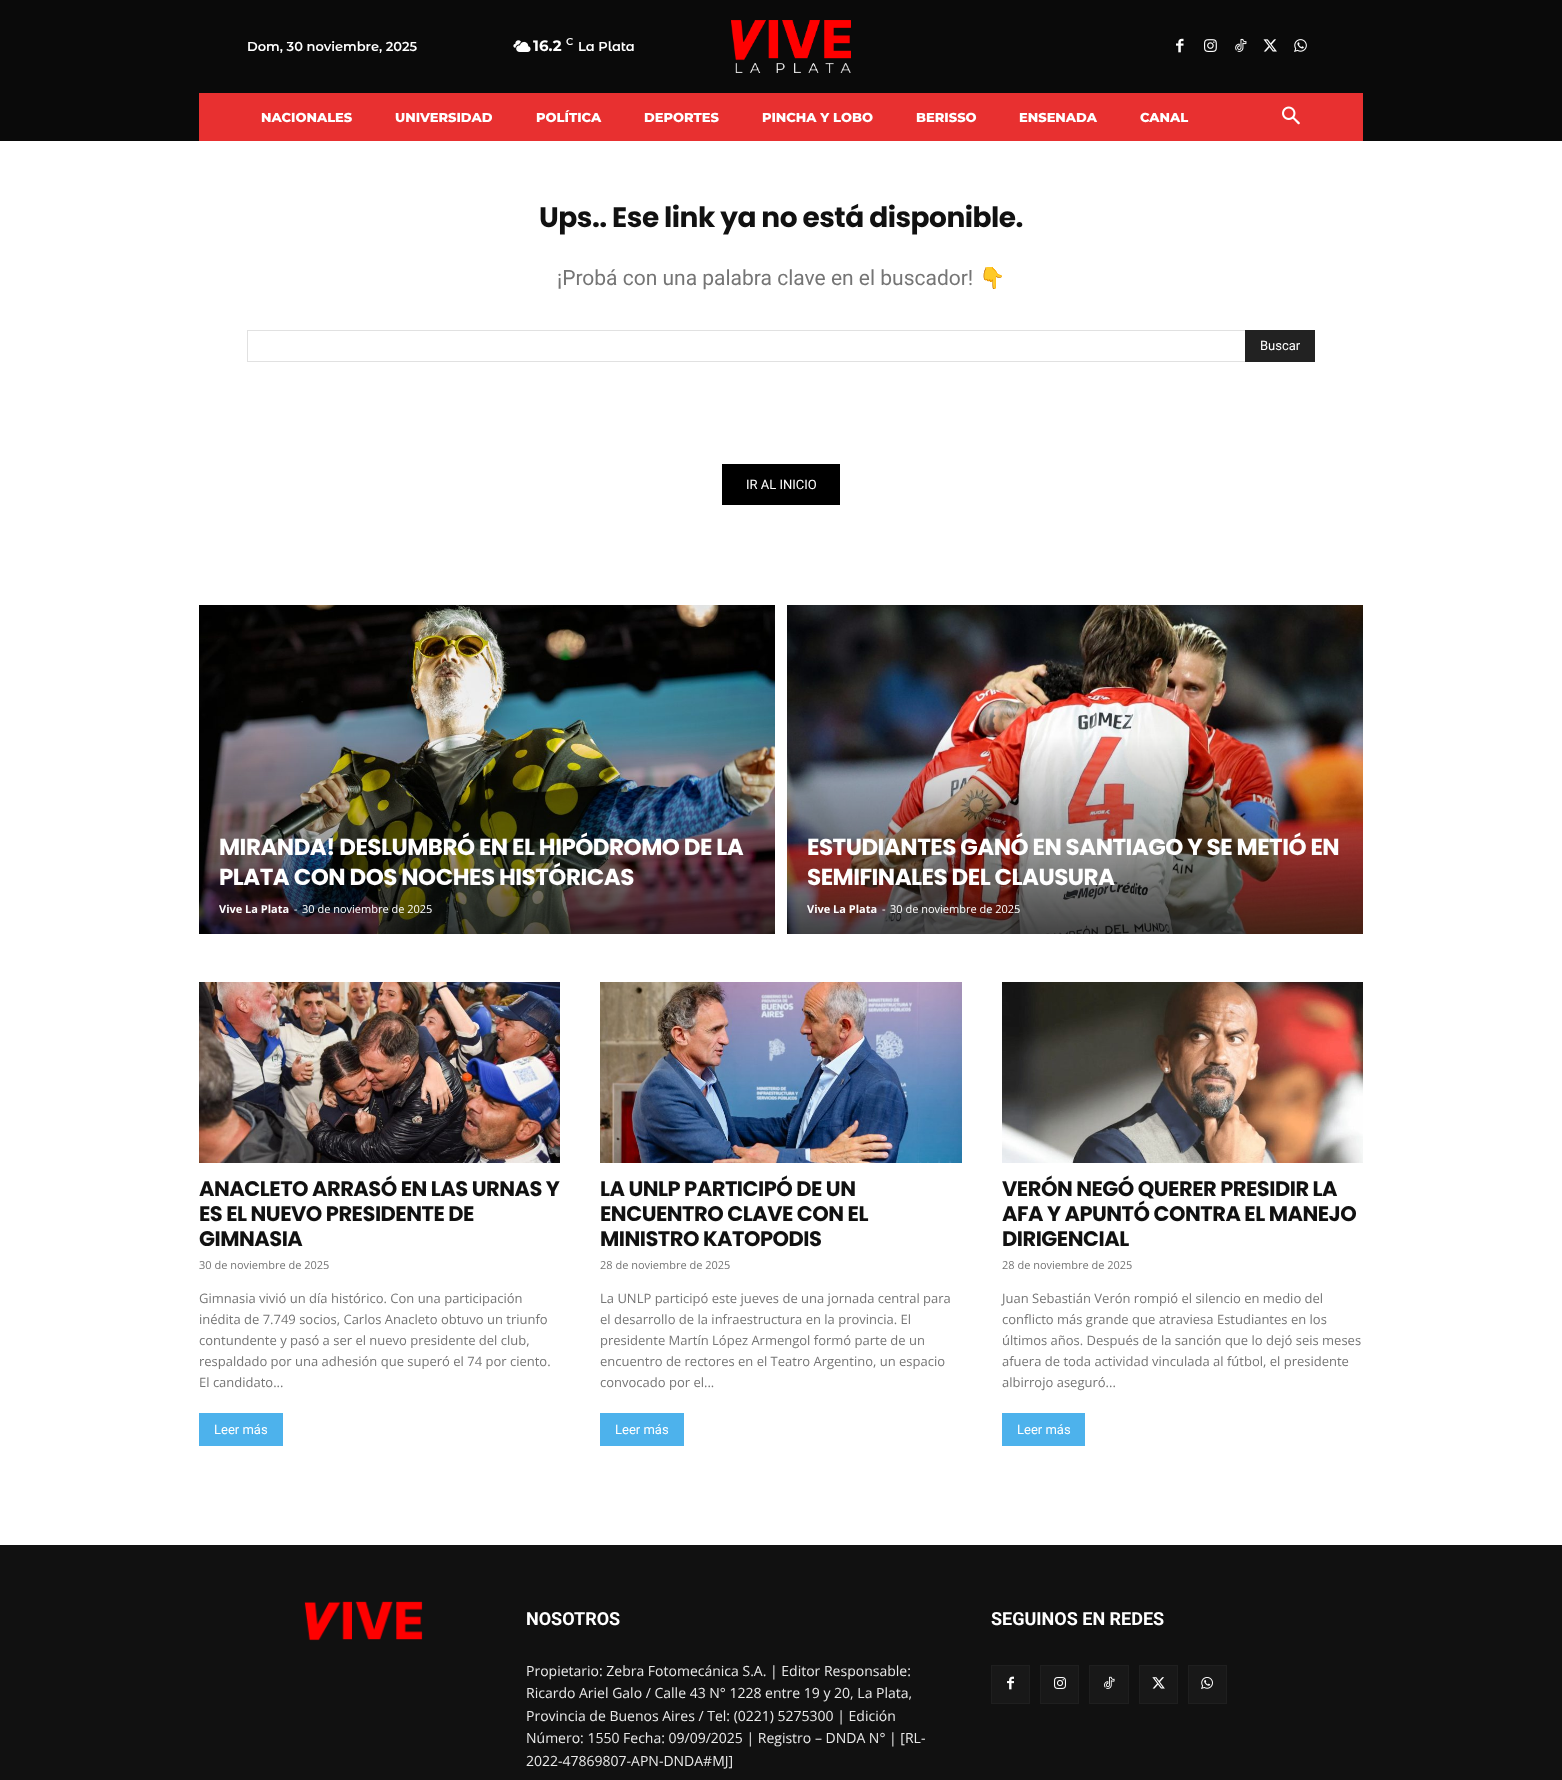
<?xml version="1.0" encoding="UTF-8"?>
<svg xmlns="http://www.w3.org/2000/svg" xmlns:xlink="http://www.w3.org/1999/xlink" width="1562" height="1780">
  <rect width="100%" height="100%" fill="#ffffff" />
  <rect width="1562" height="141" fill="#0a0a0a" />
  <image x="513" y="40" width="18" height="12" xlink:href="image1.png" />
  <image x="731" y="20" width="120" height="53" xlink:href="image2.png" />
  <image x="1176" y="38" width="8" height="15" xlink:href="image3.png" />
  <image x="1204" y="39" width="13" height="13" xlink:href="image4.png" />
  <image x="1235" y="38" width="12" height="14" xlink:href="image5.png" />
  <image x="1263" y="39" width="14" height="13" xlink:href="image6.png" />
  <image x="1294" y="39" width="13" height="13" xlink:href="image7.png" />
  <rect x="199" y="93" width="1164" height="48" fill="#e83030" />
  <image x="1282" y="106" width="18" height="19" xlink:href="image8.png" />
  <rect x="247.5" y="330.5" width="1067" height="31" fill="none" stroke="#e1e1e1" />
  <rect x="1245" y="330" width="70" height="32" fill="#222222" />
  <rect x="722" y="464" width="118" height="41" fill="#000000" />
  <image x="199" y="605" width="576" height="329" xlink:href="image9.png" />
  <image x="787" y="605" width="576" height="329" xlink:href="image10.png" />
  <image x="199" y="982" width="361" height="181" xlink:href="image11.png" />
  <rect x="199" y="1413" width="84" height="33" fill="#4db2ec" />
  <image x="600" y="982" width="362" height="181" xlink:href="image12.png" />
  <rect x="600" y="1413" width="84" height="33" fill="#4db2ec" />
  <image x="1002" y="982" width="361" height="181" xlink:href="image13.png" />
  <rect x="1002" y="1413" width="83" height="33" fill="#4db2ec" />
  <rect y="1545" width="1562" height="235" fill="#111111" />
  <image x="304" y="1601" width="119" height="40" xlink:href="image14.png" />
  <rect x="991.5" y="1665.5" width="38" height="38" fill="#181818" stroke="#1f1f1f" />
  <image x="1007" y="1676" width="7" height="14" xlink:href="image15.png" />
  <rect x="1040.5" y="1665.5" width="38" height="38" fill="#181818" stroke="#1f1f1f" />
  <image x="1054" y="1677" width="12" height="12" xlink:href="image16.png" />
  <rect x="1089.5" y="1665.5" width="39" height="38" fill="#181818" stroke="#1f1f1f" />
  <image x="1104" y="1676" width="11" height="13" xlink:href="image17.png" />
  <rect x="1139.5" y="1665.5" width="38" height="38" fill="#181818" stroke="#1f1f1f" />
  <image x="1152" y="1677" width="13" height="12" xlink:href="image18.png" />
  <rect x="1188.5" y="1665.5" width="38" height="38" fill="#181818" stroke="#1f1f1f" />
  <image x="1201" y="1677" width="12" height="12" xlink:href="image19.png" />
  <text x="247" y="51" style="font-family: Montserrat Alternates; font-size: 13px; font-weight: 600; fill: #ffffff">Dom, 30 noviembre, 2025</text>
  <text x="533" y="51" style="font-family: Montserrat Alternates; font-size: 15px; font-weight: bold; fill: #ffffff">16.2</text>
  <text x="566" y="45" style="font-family: Montserrat Alternates; font-size: 10px; font-weight: 600; fill: #ffffff">C</text>
  <text x="578" y="51" style="font-family: Montserrat Alternates; font-size: 13px; font-weight: 600; fill: #ffffff">La Plata</text>
  <text x="261" y="122" style="font-family: Montserrat; font-size: 13px; font-weight: 800; fill: #ffffff">NACIONALES</text>
  <text x="395" y="122" style="font-family: Montserrat; font-size: 13px; font-weight: 800; fill: #ffffff">UNIVERSIDAD</text>
  <text x="536" y="122" style="font-family: Montserrat; font-size: 13px; font-weight: 800; fill: #ffffff">POLÍTICA</text>
  <text x="644" y="122" style="font-family: Montserrat; font-size: 13px; font-weight: 800; fill: #ffffff">DEPORTES</text>
  <text x="762" y="122" style="font-family: Montserrat; font-size: 13px; font-weight: 800; fill: #ffffff">PINCHA Y LOBO</text>
  <text x="916" y="122" style="font-family: Montserrat; font-size: 13px; font-weight: 800; fill: #ffffff">BERISSO</text>
  <text x="1019" y="122" style="font-family: Montserrat; font-size: 13px; font-weight: 800; fill: #ffffff">ENSENADA</text>
  <text x="1140" y="122" style="font-family: Montserrat; font-size: 13px; font-weight: 800; fill: #ffffff">CANAL</text>
  <text x="539" y="227" style="font-family: Poppins; font-size: 28px; font-weight: bold; letter-spacing: -0.5px; fill: #111111">Ups.. Ese link ya no está disponible.</text>
  <text x="557" y="285" style="font-family: Roboto; font-size: 21px; fill: #757575">¡Probá con una palabra clave en el buscador!</text>
  <text x="979" y="285" style="font-family: Noto Color Emoji; font-size: 21px; fill: #757575">👇</text>
  <text x="1260" y="350" style="font-family: Roboto; font-size: 13px; fill: #ffffff">Buscar</text>
  <text x="746" y="489" style="font-family: Roboto; font-size: 13px; fill: #ffffff">IR AL INICIO</text>
  <text x="219" y="855" style="font-family: Poppins; font-size: 23px; font-weight: bold; letter-spacing: -0.5px; fill: #ffffff">MIRANDA! DESLUMBRÓ EN EL HIPÓDROMO DE LA</text>
  <text x="219" y="885" style="font-family: Poppins; font-size: 23px; font-weight: bold; letter-spacing: -0.5px; fill: #ffffff">PLATA CON DOS NOCHES HISTÓRICAS</text>
  <text x="219" y="913" style="font-family: Open Sans; font-size: 11px; font-weight: bold; fill: #ffffff">Vive La Plata</text>
  <text x="294" y="913" style="font-family: Open Sans; font-size: 11px; fill: #ffffff">-</text>
  <text x="302" y="913" style="font-family: Open Sans; font-size: 11px; fill: #ffffff">30 de noviembre de 2025</text>
  <text x="807" y="855" style="font-family: Poppins; font-size: 23px; font-weight: bold; letter-spacing: -0.5px; fill: #ffffff">ESTUDIANTES GANÓ EN SANTIAGO Y SE METIÓ EN</text>
  <text x="807" y="885" style="font-family: Poppins; font-size: 23px; font-weight: bold; letter-spacing: -0.5px; fill: #ffffff">SEMIFINALES DEL CLAUSURA</text>
  <text x="807" y="913" style="font-family: Open Sans; font-size: 11px; font-weight: bold; fill: #ffffff">Vive La Plata</text>
  <text x="882" y="913" style="font-family: Open Sans; font-size: 11px; fill: #ffffff">-</text>
  <text x="890" y="913" style="font-family: Open Sans; font-size: 11px; fill: #ffffff">30 de noviembre de 2025</text>
  <text x="199" y="1196" style="font-family: Poppins; font-size: 21px; font-weight: bold; letter-spacing: -0.5px; fill: #111111">ANACLETO ARRASÓ EN LAS URNAS Y</text>
  <text x="199" y="1221" style="font-family: Poppins; font-size: 21px; font-weight: bold; letter-spacing: -0.5px; fill: #111111">ES EL NUEVO PRESIDENTE DE</text>
  <text x="199" y="1246" style="font-family: Poppins; font-size: 21px; font-weight: bold; letter-spacing: -0.5px; fill: #111111">GIMNASIA</text>
  <text x="199" y="1269" style="font-family: Open Sans; font-size: 11px; fill: #757575">30 de noviembre de 2025</text>
  <text x="199" y="1303" style="font-family: Open Sans; font-size: 13px; fill: #757575">Gimnasia vivió un día histórico. Con una participación</text>
  <text x="199" y="1324" style="font-family: Open Sans; font-size: 13px; fill: #757575">inédita de 7.749 socios, Carlos Anacleto obtuvo un triunfo</text>
  <text x="199" y="1345" style="font-family: Open Sans; font-size: 13px; fill: #757575">contundente y pasó a ser el nuevo presidente del club,</text>
  <text x="199" y="1366" style="font-family: Open Sans; font-size: 13px; fill: #757575">respaldado por una adhesión que superó el 74 por ciento.</text>
  <text x="199" y="1387" style="font-family: Open Sans; font-size: 13px; fill: #757575">El candidato...</text>
  <text x="214" y="1434" style="font-family: Roboto; font-size: 13px; fill: #ffffff">Leer más</text>
  <text x="600" y="1196" style="font-family: Poppins; font-size: 21px; font-weight: bold; letter-spacing: -0.5px; fill: #111111">LA UNLP PARTICIPÓ DE UN</text>
  <text x="600" y="1221" style="font-family: Poppins; font-size: 21px; font-weight: bold; letter-spacing: -0.5px; fill: #111111">ENCUENTRO CLAVE CON EL</text>
  <text x="600" y="1246" style="font-family: Poppins; font-size: 21px; font-weight: bold; letter-spacing: -0.5px; fill: #111111">MINISTRO KATOPODIS</text>
  <text x="600" y="1269" style="font-family: Open Sans; font-size: 11px; fill: #757575">28 de noviembre de 2025</text>
  <text x="600" y="1303" style="font-family: Open Sans; font-size: 13px; fill: #757575">La UNLP participó este jueves de una jornada central para</text>
  <text x="600" y="1324" style="font-family: Open Sans; font-size: 13px; fill: #757575">el desarrollo de la infraestructura en la provincia. El</text>
  <text x="600" y="1345" style="font-family: Open Sans; font-size: 13px; fill: #757575">presidente Martín López Armengol formó parte de un</text>
  <text x="600" y="1366" style="font-family: Open Sans; font-size: 13px; fill: #757575">encuentro de rectores en el Teatro Argentino, un espacio</text>
  <text x="600" y="1387" style="font-family: Open Sans; font-size: 13px; fill: #757575">convocado por el...</text>
  <text x="615" y="1434" style="font-family: Roboto; font-size: 13px; fill: #ffffff">Leer más</text>
  <text x="1002" y="1196" style="font-family: Poppins; font-size: 21px; font-weight: bold; letter-spacing: -0.5px; fill: #111111">VERÓN NEGÓ QUERER PRESIDIR LA</text>
  <text x="1002" y="1221" style="font-family: Poppins; font-size: 21px; font-weight: bold; letter-spacing: -0.5px; fill: #111111">AFA Y APUNTÓ CONTRA EL MANEJO</text>
  <text x="1002" y="1246" style="font-family: Poppins; font-size: 21px; font-weight: bold; letter-spacing: -0.5px; fill: #111111">DIRIGENCIAL</text>
  <text x="1002" y="1269" style="font-family: Open Sans; font-size: 11px; fill: #757575">28 de noviembre de 2025</text>
  <text x="1002" y="1303" style="font-family: Open Sans; font-size: 13px; fill: #757575">Juan Sebastián Verón rompió el silencio en medio del</text>
  <text x="1002" y="1324" style="font-family: Open Sans; font-size: 13px; fill: #757575">conflicto más grande que atraviesa Estudiantes en los</text>
  <text x="1002" y="1345" style="font-family: Open Sans; font-size: 13px; fill: #757575">últimos años. Después de la sanción que lo dejó seis meses</text>
  <text x="1002" y="1366" style="font-family: Open Sans; font-size: 13px; fill: #757575">afuera de toda actividad vinculada al fútbol, el presidente</text>
  <text x="1002" y="1387" style="font-family: Open Sans; font-size: 13px; fill: #757575">albirrojo aseguró...</text>
  <text x="1017" y="1434" style="font-family: Roboto; font-size: 13px; fill: #ffffff">Leer más</text>
  <text x="526" y="1625" style="font-family: Roboto; font-size: 18px; font-weight: bold; fill: #ffffff">NOSOTROS</text>
  <text x="526" y="1676" style="font-family: Open Sans; font-size: 14px; fill: #eaeaea">Propietario: Zebra Fotomecánica S.A. | Editor Responsable:</text>
  <text x="526" y="1698" style="font-family: Open Sans; font-size: 14px; fill: #eaeaea">Ricardo Ariel Galo / Calle 43 N° 1228 entre 19 y 20, La Plata,</text>
  <text x="526" y="1721" style="font-family: Open Sans; font-size: 14px; fill: #eaeaea">Provincia de Buenos Aires / Tel: (0221) 5275300 | Edición</text>
  <text x="526" y="1743" style="font-family: Open Sans; font-size: 14px; fill: #eaeaea">Número: 1550 Fecha: 09/09/2025 | Registro – DNDA N° | [RL-</text>
  <text x="526" y="1766" style="font-family: Open Sans; font-size: 14px; fill: #eaeaea">2022-47869807-APN-DNDA#MJ]</text>
  <text x="991" y="1625" style="font-family: Roboto; font-size: 18px; font-weight: bold; fill: #ffffff">SEGUINOS EN REDES</text>
</svg>
